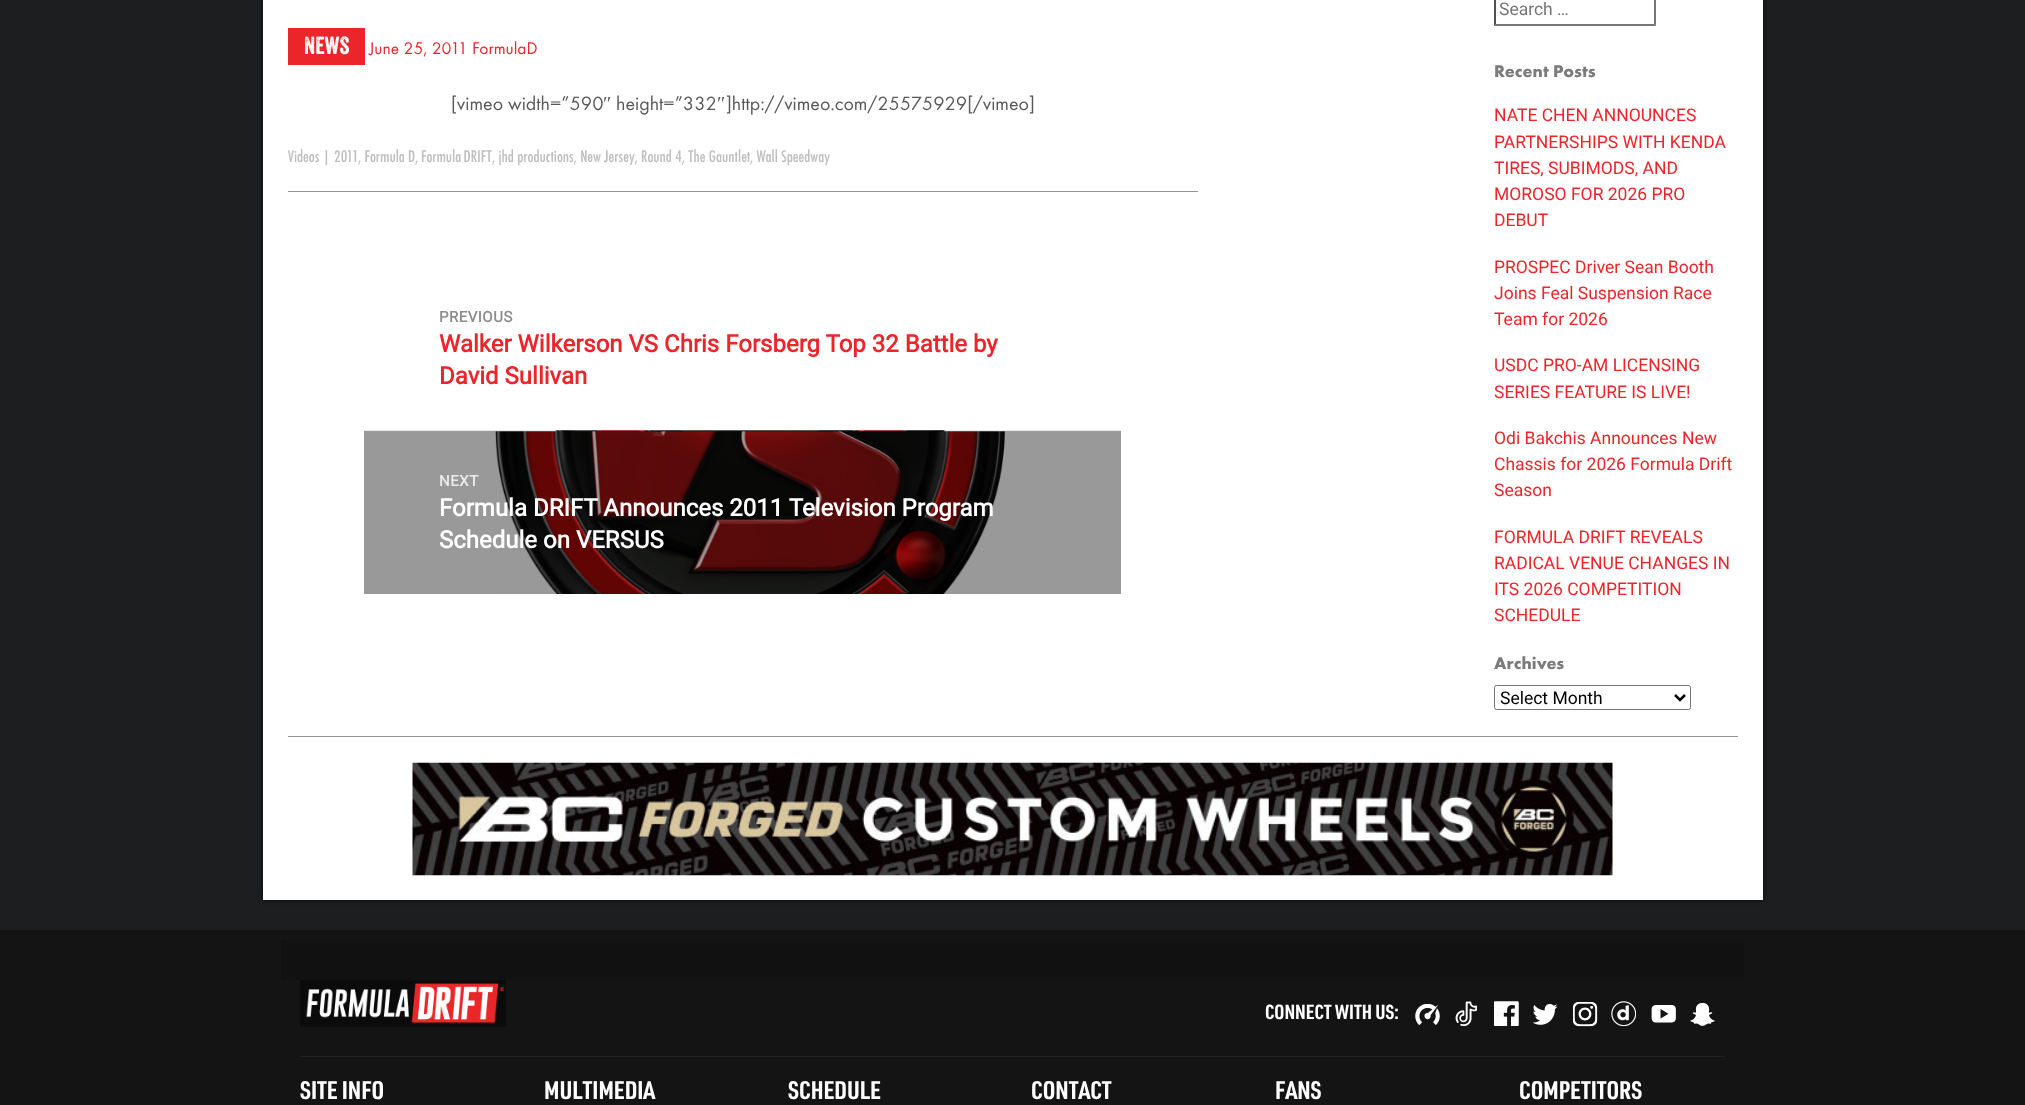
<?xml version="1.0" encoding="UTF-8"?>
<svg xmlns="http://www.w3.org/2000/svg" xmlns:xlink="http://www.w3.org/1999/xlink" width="2025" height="1105">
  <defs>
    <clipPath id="clip1"><rect x="288" width="910" height="670" /></clipPath>
  </defs>
  <rect width="100%" height="100%" fill="#1d1e1f" />
  <rect x="263" y="-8" width="1500" height="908" fill="#000000" fill-opacity="0.75" filter="blur(2.5px)" />
  <rect x="263" width="1500" height="900" fill="#ffffff" />
  <rect x="288" y="191" width="910" height="1" fill="#929497" />
  <rect x="288" y="28" width="77" height="37" fill="#eb252a" />
  <image x="495" y="430" width="511" height="164" xlink:href="image1.png" />
  <rect x="364" y="430" width="757" height="1" fill="#333333" fill-opacity="0.1" />
  <rect x="364" y="431" width="757" height="163" fill="#000000" fill-opacity="0.4" />
  <path d="M 1656 -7.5 v 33.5 l -2 -2 v -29 z" fill="#767676" />
  <path d="M 1656 26 h -162 l 2 -2 h 158 z" fill="#767676" />
  <path d="M 1494 26 v -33.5 l 2 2.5 v 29 z" fill="#4f4f4f" />
  <rect x="1494.5" y="685.5" width="196" height="24" rx="2" fill="none" stroke="#767676" />
  <path d="M 1675 695 l 5 5 l 5 -5" fill="none" stroke="#000000" stroke-width="2.5" />
  <rect x="288" y="736" width="1450" height="1" fill="#929497" />
  <image x="412" y="762" width="1201" height="114" xlink:href="image2.png" />
  <rect y="930" width="2025" height="175" fill="#141414" />
  <rect x="281" y="940" width="1463" height="40" fill="#111111" />
  <image x="300" y="980" width="206" height="47" xlink:href="image3.png" />
  <image x="1415" y="1004" width="25" height="21" xlink:href="image4.png" />
  <image x="1455" y="1001" width="22" height="25" xlink:href="image5.png" />
  <image x="1494" y="1001" width="25" height="25" xlink:href="image6.png" />
  <image x="1533" y="1004" width="25" height="21" xlink:href="image7.png" />
  <image x="1573" y="1002" width="25" height="25" xlink:href="image8.png" />
  <image x="1611" y="1001" width="25" height="25" xlink:href="image9.png" />
  <image x="1651" y="1005" width="25" height="18" xlink:href="image10.png" />
  <image x="1690" y="1003" width="25" height="23" xlink:href="image11.png" />
  <rect x="300" y="1056" width="1425" height="1" fill="#222222" />
  <text x="304" y="54" style="font-family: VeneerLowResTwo; font-size: 24px; fill: #ffffff">News</text>
  <text x="369" y="54" style="font-family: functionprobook; font-size: 17.5px; fill: #eb252a">June 25, 2011 FormulaD</text>
  <text x="451" y="110" style="font-family: functionprobook; font-size: 20px; fill: #58595b">[vimeo width=”590</text>
  <text x="603" y="110" style="font-family: Liberation Serif; font-size: 20px; fill: #58595b">″</text>
  <text x="616" y="110" style="font-family: functionprobook; font-size: 20px; fill: #58595b">height=”332</text>
  <text x="717" y="110" style="font-family: Liberation Serif; font-size: 20px; fill: #58595b">″</text>
  <text x="726" y="110" style="font-family: functionprobook; font-size: 20px; fill: #58595b">]http://vimeo.com/25575929[/vimeo]</text>
  <g clip-path="url(#clip1)">
    <text x="288" y="162" style="font-family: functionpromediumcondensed; font-size: 17.5px; font-weight: 500; fill: #bfbfbf">Videos</text>
  </g>
  <text x="322" y="162" style="font-family: functionpromediumcondensed; font-size: 17.5px; font-weight: 500; fill: #bfbfbf">| 2011</text>
  <text x="358" y="162" style="font-family: functionpromediumcondensed; font-size: 17.5px; font-weight: 500; fill: #bfbfbf">, Formula D</text>
  <text x="415" y="162" style="font-family: functionpromediumcondensed; font-size: 17.5px; font-weight: 500; fill: #bfbfbf">,</text>
  <text x="421" y="162" word-spacing="-1" style="font-family: functionpromediumcondensed; font-size: 17.5px; font-weight: 500; fill: #bfbfbf">Formula DRIFT</text>
  <text x="492" y="162" style="font-family: functionpromediumcondensed; font-size: 17.5px; font-weight: 500; fill: #bfbfbf">, jhd productions, New Jersey, Round 4, The Gauntlet, Wall Speedway</text>
  <text x="439" y="322" style="font-family: Roboto; font-size: 15px; font-weight: bold; letter-spacing: 0.5px; fill: #8d8d8d">PREVIOUS</text>
  <text x="439" y="352" style="font-family: Roboto; font-size: 24px; font-weight: bold; fill: #eb252a">Walker Wilkerson VS Chris Forsberg Top 32 Battle by</text>
  <text x="439" y="384" style="font-family: Roboto; font-size: 24px; font-weight: bold; fill: #eb252a">David Sullivan</text>
  <text x="439" y="486" style="font-family: Roboto; font-size: 15px; font-weight: bold; letter-spacing: 0.5px; fill: #ebebeb">NEXT</text>
  <text x="439" y="516" style="font-family: Roboto; font-size: 24px; font-weight: bold; fill: #ffffff">Formula DRIFT Announces 2011 Television Program</text>
  <text x="439" y="548" style="font-family: Roboto; font-size: 24px; font-weight: bold; fill: #ffffff">Schedule on VERSUS</text>
  <text x="1499" y="15" style="font-family: Roboto; font-size: 17.5px; fill: #757575">Search …</text>
  <text x="1494" y="77" style="font-family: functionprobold; font-size: 17.5px; font-weight: bold; fill: #7b7b7b">Recent Posts</text>
  <text x="1494" y="121" style="font-family: Roboto; font-size: 17.5px; fill: #eb252a">NATE CHEN ANNOUNCES</text>
  <text x="1494" y="148" style="font-family: Roboto; font-size: 17.5px; fill: #eb252a">PARTNERSHIPS WITH KENDA</text>
  <text x="1494" y="174" style="font-family: Roboto; font-size: 17.5px; fill: #eb252a">TIRES, SUBIMODS, AND</text>
  <text x="1494" y="200" style="font-family: Roboto; font-size: 17.5px; fill: #eb252a">MOROSO FOR 2026 PRO</text>
  <text x="1494" y="226" style="font-family: Roboto; font-size: 17.5px; fill: #eb252a">DEBUT</text>
  <text x="1494" y="273" style="font-family: Roboto; font-size: 17.5px; fill: #eb252a">PROSPEC Driver Sean Booth</text>
  <text x="1494" y="299" style="font-family: Roboto; font-size: 17.5px; fill: #eb252a">Joins Feal Suspension Race</text>
  <text x="1494" y="325" style="font-family: Roboto; font-size: 17.5px; fill: #eb252a">Team for 2026</text>
  <text x="1494" y="371" style="font-family: Roboto; font-size: 17.5px; fill: #eb252a">USDC PRO-AM LICENSING</text>
  <text x="1494" y="398" style="font-family: Roboto; font-size: 17.5px; fill: #eb252a">SERIES FEATURE IS LIVE!</text>
  <text x="1494" y="444" style="font-family: Roboto; font-size: 17.5px; fill: #eb252a">Odi Bakchis Announces New</text>
  <text x="1494" y="470" style="font-family: Roboto; font-size: 17.5px; fill: #eb252a">Chassis for 2026 Formula Drift</text>
  <text x="1494" y="496" style="font-family: Roboto; font-size: 17.5px; fill: #eb252a">Season</text>
  <text x="1494" y="543" style="font-family: Roboto; font-size: 17.5px; fill: #eb252a">FORMULA DRIFT REVEALS</text>
  <text x="1494" y="569" style="font-family: Roboto; font-size: 17.5px; fill: #eb252a">RADICAL VENUE CHANGES IN</text>
  <text x="1494" y="595" style="font-family: Roboto; font-size: 17.5px; fill: #eb252a">ITS 2026 COMPETITION</text>
  <text x="1494" y="621" style="font-family: Roboto; font-size: 17.5px; fill: #eb252a">SCHEDULE</text>
  <text x="1494" y="669" style="font-family: functionprobold; font-size: 17.5px; font-weight: bold; fill: #7b7b7b">Archives</text>
  <text x="1500" y="704" style="font-family: Roboto; font-size: 17.5px; fill: #000000">Select Month</text>
  <text x="1265" y="1019" style="font-family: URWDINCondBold; font-size: 20px; fill: #ffffff">CONNECT WITH US:</text>
  <text x="300" y="1099" style="font-family: URWDINCondBold; font-size: 25px; fill: #ffffff">SITE INFO</text>
  <text x="544" y="1099" style="font-family: URWDINCondBold; font-size: 25px; fill: #ffffff">MULTIMEDIA</text>
  <text x="788" y="1099" style="font-family: URWDINCondBold; font-size: 25px; fill: #ffffff">SCHEDULE</text>
  <text x="1031" y="1099" style="font-family: URWDINCondBold; font-size: 25px; fill: #ffffff">CONTACT</text>
  <text x="1275" y="1099" style="font-family: URWDINCondBold; font-size: 25px; fill: #ffffff">FANS</text>
  <text x="1519" y="1099" style="font-family: URWDINCondBold; font-size: 25px; fill: #ffffff">COMPETITORS</text>
</svg>
